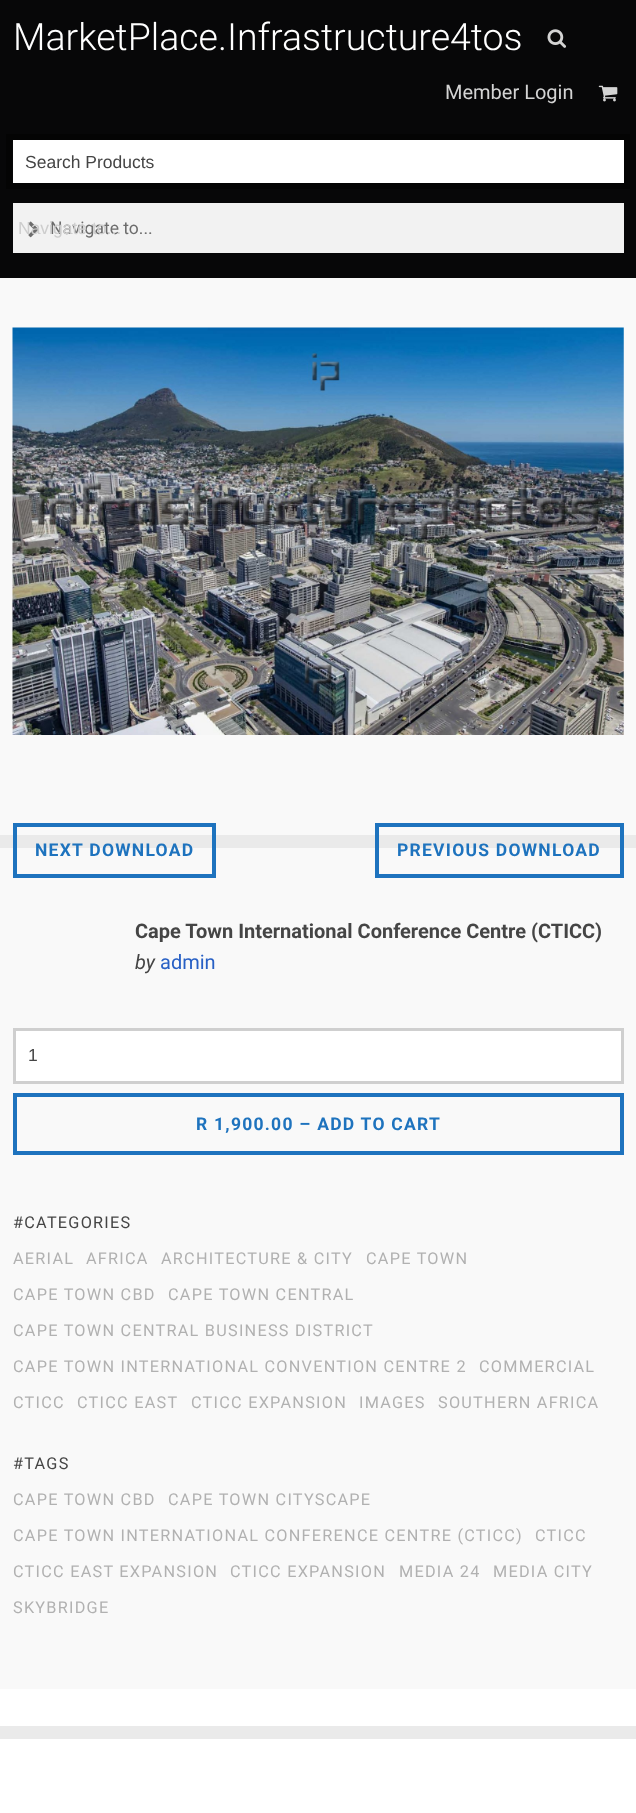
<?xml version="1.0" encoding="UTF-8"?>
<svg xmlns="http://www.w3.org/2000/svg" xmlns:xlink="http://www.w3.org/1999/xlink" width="636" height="1813">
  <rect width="100%" height="100%" fill="#ffffff" />
  <rect width="636" height="278" fill="#070708" />
  <image x="547" y="29" width="20" height="19" xlink:href="image1.png" />
  <image x="598" y="85" width="20" height="17" xlink:href="image2.png" />
  <rect x="9" y="137" width="618" height="49" fill="none" stroke="#040404" stroke-width="6" />
  <rect x="13" y="140" width="611" height="43" fill="#ffffff" />
  <rect x="13" y="203" width="611" height="50" fill="#f2f2f2" />
  <image x="28" y="221" width="11" height="17" xlink:href="image3.png" />
  <rect y="278" width="636" height="1411" fill="#f9f9f9" />
  <image x="12" y="327" width="612" height="408" xlink:href="image4.png" />
  <rect y="835" width="636" height="13" fill="#eaeaea" />
  <rect x="15" y="825" width="199" height="51" fill="none" stroke="#1e73be" stroke-width="4" />
  <rect x="377" y="825" width="245" height="51" fill="none" stroke="#1e73be" stroke-width="4" />
  <rect y="1726" width="636" height="13" fill="#eaeaea" />
  <rect x="14.5" y="1029.5" width="608" height="53" fill="#ffffff" stroke="#cfcfcf" stroke-width="3" />
  <rect x="15" y="1095" width="607" height="58" fill="none" stroke="#1e73be" stroke-width="4" />
  <text x="13" y="50" style="font-family: Roboto; font-size: 37.5px; font-weight: 300; fill: #ffffff">MarketPlace.Infrastructure4tos</text>
  <text x="445" y="99" style="font-family: Roboto; font-size: 20px; fill: #d3d3d3">Member Login</text>
  <text x="25" y="168" style="font-family: Liberation Sans; font-size: 17.5px; fill: #454545">Search Products</text>
  <text x="50" y="234" style="font-family: Roboto; font-size: 17.5px; fill: #6d6d6d">Navigate to...</text>
  <text x="18" y="234" style="font-family: Liberation Sans; font-size: 17.5px; fill: #cdcdcd">Navigate to...</text>
  <text x="35" y="856" style="font-family: Roboto; font-size: 17.5px; font-weight: bold; letter-spacing: 1.25px; fill: #1e73be">NEXT DOWNLOAD</text>
  <text x="397" y="856" style="font-family: Roboto; font-size: 17.5px; font-weight: bold; letter-spacing: 1.25px; fill: #1e73be">PREVIOUS DOWNLOAD</text>
  <text x="135" y="938" style="font-family: Roboto; font-size: 20px; font-weight: bold; fill: #454545">Cape Town International Conference Centre (CTICC)</text>
  <text x="135" y="969" style="font-family: Roboto; font-size: 20px; font-style: italic; fill: #454545">by</text>
  <text x="160" y="969" style="font-family: Roboto; font-size: 20px; fill: #2860c5">admin</text>
  <text x="28" y="1061" style="font-family: Liberation Sans; font-size: 17.5px; fill: #454545">1</text>
  <text x="196" y="1130" style="font-family: Roboto; font-size: 17.5px; font-weight: bold; letter-spacing: 1.25px; fill: #1e73be">R 1,900.00 – ADD TO CART</text>
  <text x="13" y="1228" style="font-family: Roboto; font-size: 16.25px; letter-spacing: 1.25px; fill: #454545">#CATEGORIES</text>
  <text x="13" y="1264" style="font-family: Roboto; font-size: 16.25px; letter-spacing: 1.25px; fill: #b1b1b1">AERIAL</text>
  <text x="86" y="1264" style="font-family: Roboto; font-size: 16.25px; letter-spacing: 1.25px; fill: #b1b1b1">AFRICA</text>
  <text x="161" y="1264" style="font-family: Roboto; font-size: 16.25px; letter-spacing: 1.25px; fill: #b1b1b1">ARCHITECTURE &amp; CITY</text>
  <text x="366" y="1264" style="font-family: Roboto; font-size: 16.25px; letter-spacing: 1.25px; fill: #b1b1b1">CAPE TOWN</text>
  <text x="13" y="1300" style="font-family: Roboto; font-size: 16.25px; letter-spacing: 1.25px; fill: #b1b1b1">CAPE TOWN CBD</text>
  <text x="168" y="1300" style="font-family: Roboto; font-size: 16.25px; letter-spacing: 1.25px; fill: #b1b1b1">CAPE TOWN CENTRAL</text>
  <text x="13" y="1336" style="font-family: Roboto; font-size: 16.25px; letter-spacing: 1.25px; fill: #b1b1b1">CAPE TOWN CENTRAL BUSINESS DISTRICT</text>
  <text x="13" y="1372" style="font-family: Roboto; font-size: 16.25px; letter-spacing: 1.25px; fill: #b1b1b1">CAPE TOWN INTERNATIONAL CONVENTION CENTRE 2</text>
  <text x="479" y="1372" style="font-family: Roboto; font-size: 16.25px; letter-spacing: 1.25px; fill: #b1b1b1">COMMERCIAL</text>
  <text x="13" y="1408" style="font-family: Roboto; font-size: 16.25px; letter-spacing: 1.25px; fill: #b1b1b1">CTICC</text>
  <text x="77" y="1408" style="font-family: Roboto; font-size: 16.25px; letter-spacing: 1.25px; fill: #b1b1b1">CTICC EAST</text>
  <text x="191" y="1408" style="font-family: Roboto; font-size: 16.25px; letter-spacing: 1.25px; fill: #b1b1b1">CTICC EXPANSION</text>
  <text x="359" y="1408" style="font-family: Roboto; font-size: 16.25px; letter-spacing: 1.25px; fill: #b1b1b1">IMAGES</text>
  <text x="438" y="1408" style="font-family: Roboto; font-size: 16.25px; letter-spacing: 1.25px; fill: #b1b1b1">SOUTHERN AFRICA</text>
  <text x="13" y="1469" style="font-family: Roboto; font-size: 16.25px; letter-spacing: 1.25px; fill: #454545">#TAGS</text>
  <text x="13" y="1505" style="font-family: Roboto; font-size: 16.25px; letter-spacing: 1.25px; fill: #b1b1b1">CAPE TOWN CBD</text>
  <text x="168" y="1505" style="font-family: Roboto; font-size: 16.25px; letter-spacing: 1.25px; fill: #b1b1b1">CAPE TOWN CITYSCAPE</text>
  <text x="13" y="1541" style="font-family: Roboto; font-size: 16.25px; letter-spacing: 1.25px; fill: #b1b1b1">CAPE TOWN INTERNATIONAL CONFERENCE CENTRE (CTICC)</text>
  <text x="535" y="1541" style="font-family: Roboto; font-size: 16.25px; letter-spacing: 1.25px; fill: #b1b1b1">CTICC</text>
  <text x="13" y="1577" style="font-family: Roboto; font-size: 16.25px; letter-spacing: 1.25px; fill: #b1b1b1">CTICC EAST EXPANSION</text>
  <text x="230" y="1577" style="font-family: Roboto; font-size: 16.25px; letter-spacing: 1.25px; fill: #b1b1b1">CTICC EXPANSION</text>
  <text x="399" y="1577" style="font-family: Roboto; font-size: 16.25px; letter-spacing: 1.25px; fill: #b1b1b1">MEDIA 24</text>
  <text x="493" y="1577" style="font-family: Roboto; font-size: 16.25px; letter-spacing: 1.25px; fill: #b1b1b1">MEDIA CITY</text>
  <text x="13" y="1613" style="font-family: Roboto; font-size: 16.25px; letter-spacing: 1.25px; fill: #b1b1b1">SKYBRIDGE</text>
</svg>
